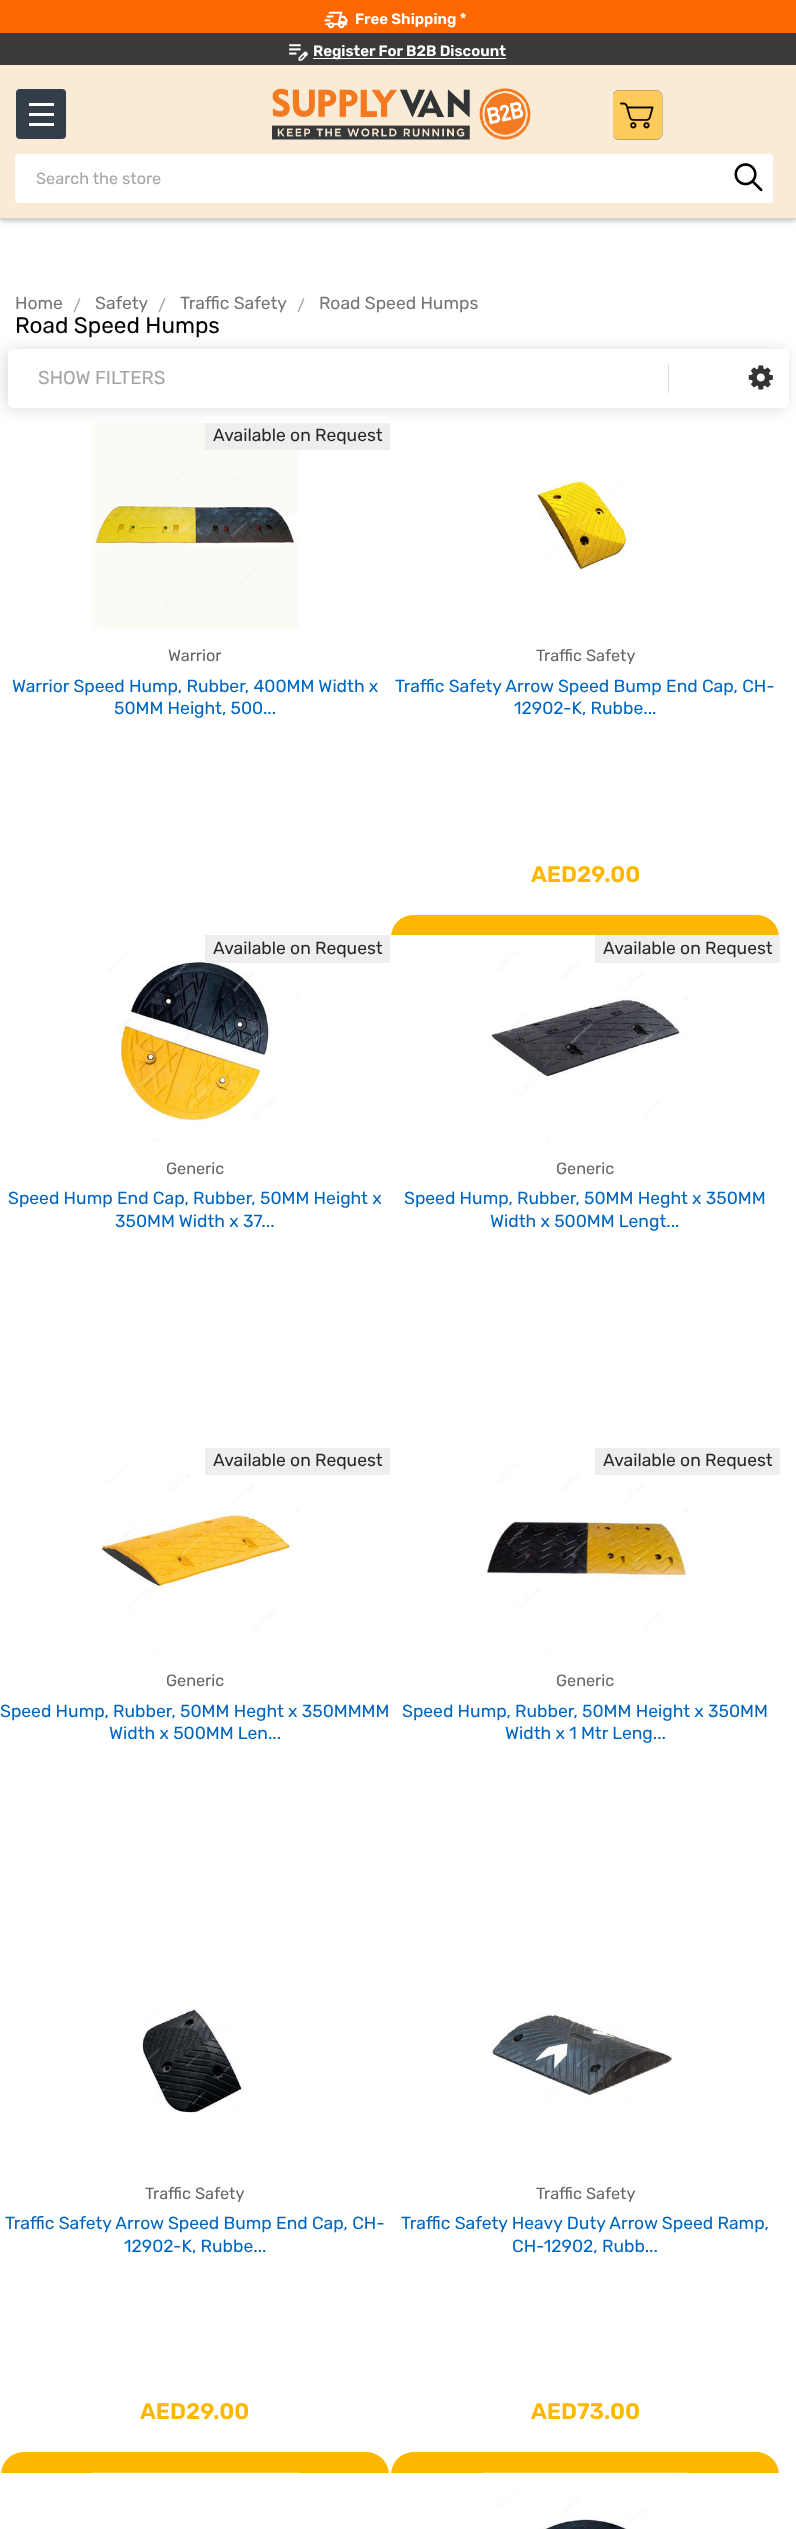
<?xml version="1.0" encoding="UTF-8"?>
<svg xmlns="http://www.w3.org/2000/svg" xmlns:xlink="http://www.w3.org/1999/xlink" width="796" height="2529">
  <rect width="100%" height="100%" fill="#ffffff" />
  <rect y="3" width="796" height="218" fill="#000000" fill-opacity="0.25" filter="blur(2.5px)" />
  <rect width="796" height="33" fill="#ff6700" />
  <image x="324" y="11" width="24" height="18" xlink:href="image1.png" />
  <rect y="33" width="796" height="32" fill="#3a3a3c" />
  <image x="289" y="44" width="19" height="17" xlink:href="image2.png" />
  <rect x="313" y="58" width="193" height="1" fill="#ffffff" />
  <rect y="65" width="796" height="153" fill="#faebd7" />
  <rect x="16" y="89" width="50" height="50" rx="4" fill="#333e48" />
  <rect x="29" y="113" width="25" height="3" fill="#ffffff" />
  <rect x="29" y="103" width="25" height="3" fill="#ffffff" />
  <rect x="29" y="123" width="25" height="3" fill="#ffffff" />
  <rect y="218" width="796" height="1" fill="#dfd1bf" />
  <image x="272" y="88" width="259" height="52" xlink:href="image3.png" />
  <image x="613" y="90" width="50" height="50" xlink:href="image4.png" />
  <rect x="15.5" y="154.5" width="757" height="48" rx="2" fill="#ffffff" stroke="#ffffff" />
  <rect x="659.5" y="154.5" width="113" height="48" rx="2" fill="#ffffff" stroke="#ffffff" />
  <image x="734" y="163" width="29" height="29" xlink:href="image5.png" />
  <rect x="5" y="350" width="781" height="59" rx="5" fill="#dcdcdc" filter="blur(8px)" />
  <rect x="8" y="349" width="781" height="59" rx="5" fill="#ffffff" />
  <rect x="668" y="364" width="1" height="29" fill="#dcdcdc" />
  <image x="748" y="365" width="25" height="25" xlink:href="image6.png" />
  <image x="92" y="423" width="207" height="206" xlink:href="image7.png" />
  <rect x="205" y="423" width="185" height="27" fill="#eeeeee" />
  <image x="536" y="479" width="93" height="93" xlink:href="image8.png" />
  <rect x="390.5" y="914.5" width="389" height="46" rx="23" fill="#fcb700" stroke="#ffffff" />
  <image x="108" y="935" width="191" height="206" xlink:href="image9.png" />
  <rect x="205" y="935" width="185" height="28" fill="#eeeeee" />
  <rect x="390" y="935" width="390" height="26" fill="#ffffff" />
  <image x="490" y="935" width="199" height="206" xlink:href="image10.png" />
  <rect x="595" y="935" width="185" height="28" fill="#eeeeee" />
  <image x="98" y="1448" width="201" height="205" xlink:href="image11.png" />
  <rect x="205" y="1448" width="185" height="27" fill="#eeeeee" />
  <image x="486" y="1448" width="203" height="205" xlink:href="image12.png" />
  <rect x="595" y="1448" width="185" height="27" fill="#eeeeee" />
  <image x="142" y="2008" width="100" height="105" xlink:href="image13.png" />
  <rect x="0.5" y="2451.5" width="389" height="47" rx="23.5" fill="#fcb700" stroke="#ffffff" />
  <image x="488" y="2012" width="185" height="92" xlink:href="image14.png" />
  <rect x="390.5" y="2451.5" width="389" height="47" rx="23.5" fill="#fcb700" stroke="#ffffff" />
  <rect y="2473" width="780" height="26" fill="#ffffff" />
  <image x="92" y="2472" width="207" height="1" xlink:href="image15.png" />
  <image x="482" y="2472" width="207" height="57" xlink:href="image16.png" />
  <text x="355" y="24" style="font-family: Rubik; font-size: 15px; font-weight: 600; fill: #ffffff">Free Shipping *</text>
  <text x="313" y="56" style="font-family: Rubik; font-size: 15px; font-weight: 600; fill: #ffffff">Register For B2B Discount</text>
  <text x="36" y="184" style="font-family: Rubik; font-size: 16.25px; fill: #a5a5a5">Search the store</text>
  <text x="15" y="309" style="font-family: Rubik; font-size: 17.5px; fill: #757575">Home</text>
  <text x="73" y="311" style="font-family: Rubik; font-size: 16.25px; fill: #a5a5a5">/</text>
  <text x="95" y="309" style="font-family: Rubik; font-size: 17.5px; fill: #757575">Safety</text>
  <text x="158" y="311" style="font-family: Rubik; font-size: 16.25px; fill: #a5a5a5">/</text>
  <text x="180" y="309" style="font-family: Rubik; font-size: 17.5px; fill: #757575">Traffic Safety</text>
  <text x="297" y="311" style="font-family: Rubik; font-size: 16.25px; fill: #a5a5a5">/</text>
  <text x="319" y="309" style="font-family: Rubik; font-size: 17.5px; fill: #757575">Road Speed Humps</text>
  <text x="15" y="333" style="font-family: Rubik; font-size: 22.5px; fill: #000000">Road Speed Humps</text>
  <text x="38" y="384" style="font-family: Rubik; font-size: 18.75px; fill: #a5a5a5">SHOW FILTERS</text>
  <text x="213" y="441" style="font-family: Rubik; font-size: 17.5px; fill: #282828">Available on Request</text>
  <text x="168" y="661" style="font-family: Rubik; font-size: 16.25px; fill: #666666">Warrior</text>
  <text x="12" y="692" style="font-family: Rubik; font-size: 17.5px; fill: #0066c0">Warrior Speed Hump, Rubber, 400MM Width x</text>
  <text x="114" y="714" style="font-family: Rubik; font-size: 17.5px; fill: #0066c0">50MM Height, 500...</text>
  <text x="536" y="661" style="font-family: Rubik; font-size: 16.25px; fill: #666666">Traffic Safety</text>
  <text x="395" y="692" style="font-family: Rubik; font-size: 17.5px; fill: #0066c0">Traffic Safety Arrow Speed Bump End Cap, CH-</text>
  <text x="514" y="714" style="font-family: Rubik; font-size: 17.5px; fill: #0066c0">12902-K, Rubbe...</text>
  <text x="531" y="882" style="font-family: Rubik; font-size: 22.5px; font-weight: 600; fill: #fcb700">AED29.00</text>
  <text x="213" y="954" style="font-family: Rubik; font-size: 17.5px; fill: #282828">Available on Request</text>
  <text x="166" y="1174" style="font-family: Rubik; font-size: 16.25px; fill: #666666">Generic</text>
  <text x="8" y="1204" style="font-family: Rubik; font-size: 17.5px; fill: #0066c0">Speed Hump End Cap, Rubber, 50MM Height x</text>
  <text x="115" y="1227" style="font-family: Rubik; font-size: 17.5px; fill: #0066c0">350MM Width x 37...</text>
  <text x="603" y="954" style="font-family: Rubik; font-size: 17.5px; fill: #282828">Available on Request</text>
  <text x="556" y="1174" style="font-family: Rubik; font-size: 16.25px; fill: #666666">Generic</text>
  <text x="404" y="1204" style="font-family: Rubik; font-size: 17.5px; fill: #0066c0">Speed Hump, Rubber, 50MM Heght x 350MM</text>
  <text x="490" y="1227" style="font-family: Rubik; font-size: 17.5px; fill: #0066c0">Width x 500MM Lengt...</text>
  <text x="213" y="1466" style="font-family: Rubik; font-size: 17.5px; fill: #282828">Available on Request</text>
  <text x="166" y="1686" style="font-family: Rubik; font-size: 16.25px; fill: #666666">Generic</text>
  <text x="0" y="1717" style="font-family: Rubik; font-size: 17.5px; fill: #0066c0">Speed Hump, Rubber, 50MM Heght x 350MMMM</text>
  <text x="109" y="1739" style="font-family: Rubik; font-size: 17.5px; fill: #0066c0">Width x 500MM Len...</text>
  <text x="603" y="1466" style="font-family: Rubik; font-size: 17.5px; fill: #282828">Available on Request</text>
  <text x="556" y="1686" style="font-family: Rubik; font-size: 16.25px; fill: #666666">Generic</text>
  <text x="402" y="1717" style="font-family: Rubik; font-size: 17.5px; fill: #0066c0">Speed Hump, Rubber, 50MM Height x 350MM</text>
  <text x="505" y="1739" style="font-family: Rubik; font-size: 17.5px; fill: #0066c0">Width x 1 Mtr Leng...</text>
  <text x="145" y="2199" style="font-family: Rubik; font-size: 16.25px; fill: #666666">Traffic Safety</text>
  <text x="5" y="2229" style="font-family: Rubik; font-size: 17.5px; fill: #0066c0">Traffic Safety Arrow Speed Bump End Cap, CH-</text>
  <text x="124" y="2252" style="font-family: Rubik; font-size: 17.5px; fill: #0066c0">12902-K, Rubbe...</text>
  <text x="140" y="2419" style="font-family: Rubik; font-size: 22.5px; font-weight: 600; fill: #fcb700">AED29.00</text>
  <text x="536" y="2199" style="font-family: Rubik; font-size: 16.25px; fill: #666666">Traffic Safety</text>
  <text x="401" y="2229" style="font-family: Rubik; font-size: 17.5px; fill: #0066c0">Traffic Safety Heavy Duty Arrow Speed Ramp,</text>
  <text x="512" y="2252" style="font-family: Rubik; font-size: 17.5px; fill: #0066c0">CH-12902, Rubb...</text>
  <text x="531" y="2419" style="font-family: Rubik; font-size: 22.5px; font-weight: 600; fill: #fcb700">AED73.00</text>
</svg>
